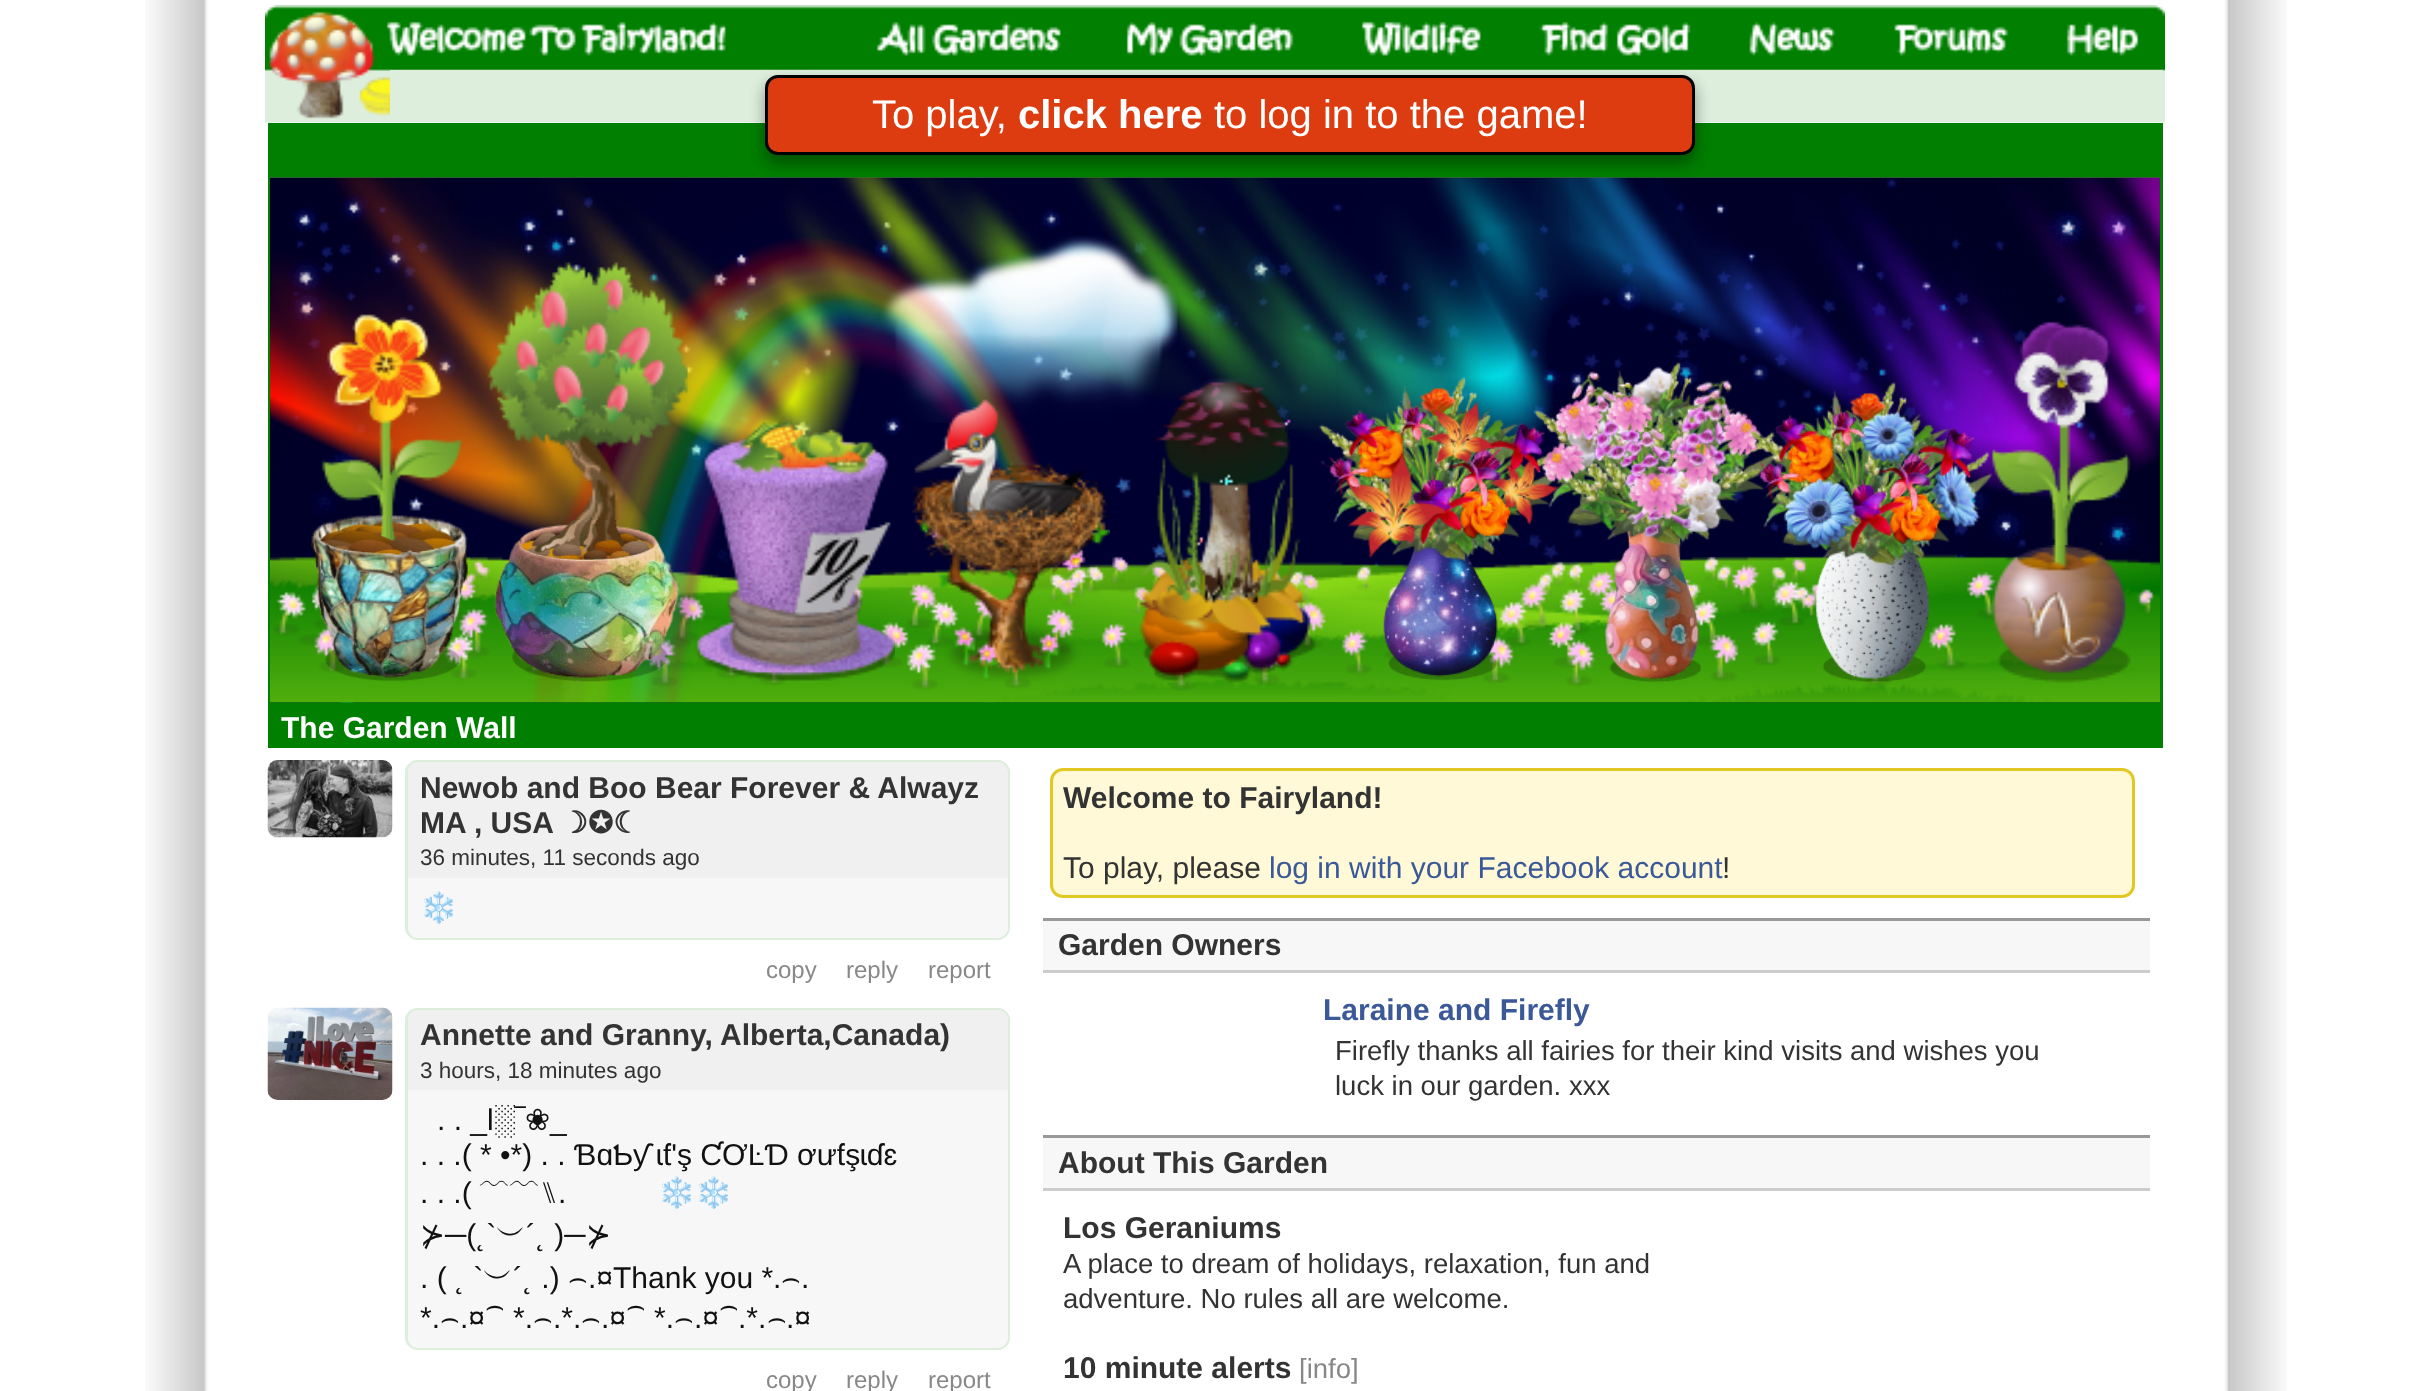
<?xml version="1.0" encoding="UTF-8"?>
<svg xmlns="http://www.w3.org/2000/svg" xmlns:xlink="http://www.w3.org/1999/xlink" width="2429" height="1391">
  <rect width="100%" height="100%" fill="#ffffff" />
  <image x="145" y="0" width="2142" height="1391" xlink:href="image1.png" />
  <image x="265" y="5" width="1900" height="118" xlink:href="image2.png" />
  <rect x="390" y="70" width="1773" height="48" fill="#ddeedd" />
  <rect x="268" y="123" width="1895" height="52" fill="#007f00" />
  <rect x="269.5" y="176.5" width="1892" height="527" fill="none" stroke="#007f00" stroke-width="3" />
  <image x="270" y="177" width="1890" height="1" xlink:href="image3.png" />
  <image x="270" y="177" width="1890" height="526" xlink:href="image4.png" />
  <image x="270" y="177" width="281" height="347" xlink:href="image5.png" />
  <image x="289" y="178" width="510" height="361" xlink:href="image10.png" />
  <image x="515" y="177" width="508" height="361" xlink:href="image6.png" />
  <image x="826" y="177" width="510" height="252" xlink:href="image7.png" />
  <image x="1210" y="177" width="592" height="284" xlink:href="image8.png" />
  <image x="1569" y="177" width="492" height="314" xlink:href="image9.png" />
  <rect x="765" y="83" width="930" height="80" rx="13" fill="#000000" fill-opacity="0.23" filter="blur(7.5px)" />
  <rect x="765" y="83" width="930" height="80" rx="13" fill="#000000" fill-opacity="0.16" filter="blur(7.5px)" />
  <rect x="766.5" y="76.5" width="927" height="77" rx="11.5" fill="#dd3c10" stroke="#000000" stroke-width="3" />
  <image x="1806" y="177" width="354" height="320" xlink:href="image11.png" />
  <image x="880" y="235" width="298" height="188" xlink:href="image12.png" />
  <image x="270" y="554" width="1890" height="149" xlink:href="image14.png" />
  <image x="273" y="556" width="1881" height="135" xlink:href="image15.png" />
  <image x="533" y="238" width="536" height="465" xlink:href="image13.png" />
  <image x="321" y="314" width="142" height="201" xlink:href="image16.png" />
  <image x="311" y="515" width="158" height="167" xlink:href="image17.png" />
  <image x="319" y="515" width="138" height="41" xlink:href="image18.png" />
  <image x="487" y="262" width="201" height="258" xlink:href="image19.png" />
  <image x="494" y="524" width="187" height="158" xlink:href="image21.png" />
  <image x="520" y="520" width="136" height="40" xlink:href="image20.png" />
  <image x="702" y="627" width="193" height="54" xlink:href="image24.png" />
  <image x="695" y="436" width="200" height="246" xlink:href="image23.png" />
  <image x="730" y="422" width="146" height="56" xlink:href="image22.png" />
  <image x="914" y="482" width="196" height="200" xlink:href="image27.png" />
  <image x="912" y="462" width="198" height="109" xlink:href="image26.png" />
  <image x="914" y="399" width="172" height="150" xlink:href="image25.png" />
  <image x="914" y="495" width="188" height="84" xlink:href="image28.png" />
  <image x="1139" y="378" width="167" height="227" xlink:href="image29.png" />
  <image x="1196" y="419" width="95" height="127" xlink:href="image30.png" />
  <image x="1139" y="605" width="177" height="78" xlink:href="image31.png" />
  <image x="1383" y="502" width="115" height="179" xlink:href="image39.png" />
  <image x="1319" y="377" width="241" height="185" xlink:href="image32.png" />
  <image x="1419" y="386" width="37" height="30" xlink:href="image33.png" />
  <image x="1357" y="426" width="155" height="113" xlink:href="image36.png" />
  <image x="1411" y="435" width="95" height="110" xlink:href="image38.png" />
  <image x="1345" y="455" width="102" height="103" xlink:href="image37.png" />
  <image x="1427" y="401" width="132" height="124" xlink:href="image35.png" />
  <image x="1321" y="398" width="224" height="97" xlink:href="image34.png" />
  <image x="1604" y="486" width="98" height="197" xlink:href="image47.png" />
  <image x="1534" y="362" width="242" height="185" xlink:href="image40.png" />
  <image x="1565" y="411" width="158" height="123" xlink:href="image45.png" />
  <image x="1614" y="380" width="78" height="158" xlink:href="image43.png" />
  <image x="1628" y="432" width="93" height="89" xlink:href="image46.png" />
  <image x="1570" y="371" width="162" height="152" xlink:href="image42.png" />
  <image x="1631" y="366" width="43" height="41" xlink:href="image41.png" />
  <image x="1542" y="395" width="220" height="88" xlink:href="image44.png" />
  <image x="1815" y="507" width="114" height="175" xlink:href="image55.png" />
  <image x="1749" y="382" width="244" height="185" xlink:href="image48.png" />
  <image x="1849" y="391" width="37" height="30" xlink:href="image49.png" />
  <image x="1787" y="431" width="155" height="113" xlink:href="image52.png" />
  <image x="1847" y="440" width="89" height="110" xlink:href="image54.png" />
  <image x="1860" y="412" width="121" height="116" xlink:href="image51.png" />
  <image x="1783" y="477" width="74" height="72" xlink:href="image53.png" />
  <image x="1751" y="403" width="224" height="97" xlink:href="image50.png" />
  <image x="1991" y="321" width="140" height="224" xlink:href="image56.png" />
  <image x="1991" y="545" width="140" height="138" xlink:href="image57.png" />
  <image x="267" y="760" width="126" height="78" xlink:href="image58.png" />
  <path d="M 418 760 h 579 c 7 0 13 6 13 13 v 105 h -605 v -105 c 0 -7 6 -13 13 -13 z" fill="#f0f0f0" />
  <path d="M 418 760 h 580 c 6 0 12 6 12 12 v 106 h -605 v -106 c 0 -6 6 -12 13 -12 z m 0 2 h 580 c 5 0 10 5 10 10 v 106 h -600 v -106 c 0 -5 4 -10 10 -10 z" fill="#ddeedd" fill-rule="evenodd" />
  <path d="M 405 878 h 605 v 49 c 0 7 -6 13 -13 13 h -579 c -7 0 -13 -6 -13 -13 z" fill="#f7f7f7" />
  <path d="M 405 878 h 605 v 50 c 0 6 -6 12 -12 12 h -580 c -7 0 -13 -6 -13 -12 z m 3 0 h 600 v 50 c 0 5 -5 10 -10 10 h -580 c -6 0 -10 -5 -10 -10 z" fill="#ddeedd" fill-rule="evenodd" />
  <image x="267" y="1007" width="126" height="93" xlink:href="image59.png" />
  <path d="M 418 1008 h 579 c 7 0 13 6 13 13 v 69 h -605 v -69 c 0 -7 6 -13 13 -13 z" fill="#f0f0f0" />
  <path d="M 418 1008 h 580 c 6 0 12 5 12 12 v 70 h -605 v -70 c 0 -7 6 -12 13 -12 z m 0 2 h 580 c 5 0 10 4 10 10 v 70 h -600 v -70 c 0 -6 4 -10 10 -10 z" fill="#ddeedd" fill-rule="evenodd" />
  <path d="M 405 1090 h 605 v 247 c 0 7 -6 13 -13 13 h -579 c -7 0 -13 -6 -13 -13 z" fill="#f7f7f7" />
  <path d="M 405 1090 h 605 v 248 c 0 6 -6 12 -12 12 h -580 c -7 0 -13 -6 -13 -12 z m 3 0 h 600 v 248 c 0 5 -5 10 -10 10 h -580 c -6 0 -10 -5 -10 -10 z" fill="#ddeedd" fill-rule="evenodd" />
  <rect x="268" y="705" width="1895" height="43" fill="#007f00" />
  <rect x="1051.5" y="769.5" width="1082" height="127" rx="11.5" fill="#fff9d7" stroke="#e2c822" stroke-width="3" />
  <rect x="1043" y="921" width="1107" height="49" fill="#f7f7f7" />
  <rect x="1043" y="918" width="1107" height="3" fill="#999999" />
  <rect x="1043" y="970" width="1107" height="3" fill="#cccccc" />
  <rect x="1043" y="1138" width="1107" height="50" fill="#f7f7f7" />
  <rect x="1043" y="1135" width="1107" height="3" fill="#999999" />
  <rect x="1043" y="1188" width="1107" height="3" fill="#cccccc" />
  <text x="872" y="128" style="font-family: Liberation Sans; font-size: 40px; fill: #ffffff">To play,</text>
  <text x="1018" y="128" style="font-family: Liberation Sans; font-size: 40px; font-weight: bold; fill: #ffffff">click here</text>
  <text x="1214" y="128" style="font-family: Liberation Sans; font-size: 40px; fill: #ffffff">to log in to the game!</text>
  <text x="281" y="738" style="font-family: Liberation Sans; font-size: 30px; font-weight: bold; fill: #ffffff">The Garden Wall</text>
  <text x="420" y="798" style="font-family: Liberation Sans; font-size: 30px; font-weight: bold; fill: #333333">Newob and Boo Bear Forever &amp; Alwayz</text>
  <text x="420" y="833" style="font-family: Liberation Sans; font-size: 30px; font-weight: bold; fill: #333333">MA , USA</text>
  <text x="561" y="833" style="font-family: DejaVu Sans; font-size: 30px; font-weight: bold; fill: #333333">☽✪☾</text>
  <text x="420" y="865" style="font-family: Liberation Sans; font-size: 22.5px; fill: #333333">36 minutes, 11 seconds ago</text>
  <text x="420" y="918" style="font-family: Noto Color Emoji; font-size: 30px; fill: #111111">❄️</text>
  <text x="766" y="978" style="font-family: Liberation Sans; font-size: 24px; fill: #888888">copy</text>
  <text x="846" y="978" style="font-family: Liberation Sans; font-size: 24px; fill: #888888">reply</text>
  <text x="928" y="978" style="font-family: Liberation Sans; font-size: 24px; fill: #888888">report</text>
  <text x="420" y="1045" style="font-family: Liberation Sans; font-size: 30px; font-weight: bold; fill: #333333">Annette</text>
  <text x="540" y="1045" style="font-family: Liberation Sans; font-size: 30px; font-weight: bold; fill: #333333">and Granny,</text>
  <text x="720" y="1045" style="font-family: Liberation Sans; font-size: 30px; font-weight: bold; fill: #333333">Alberta,Canada)</text>
  <text x="420" y="1078" style="font-family: Liberation Sans; font-size: 22.5px; fill: #333333">3 hours, 18 minutes ago</text>
  <text x="437" y="1130" style="font-family: Liberation Sans; font-size: 30px; fill: #111111">. . _l░‾</text>
  <text x="525" y="1130" style="font-family: DejaVu Sans; font-size: 30px; fill: #111111">❀</text>
  <text x="550" y="1130" style="font-family: Liberation Sans; font-size: 30px; fill: #111111">_</text>
  <text x="420" y="1165" style="font-family: Liberation Sans; font-size: 30px; fill: #111111">. . .( * •*) . . ƁɑƄƴ ɩƭ'ş ƇƠĿƊ ơưƭşɩɗɛ</text>
  <text x="420" y="1203" style="font-family: Liberation Sans; font-size: 30px; fill: #111111">. . .(</text>
  <text x="480" y="1203" style="font-family: WenQuanYi Zen Hei; font-size: 30px; font-weight: 500; fill: #111111">﹋﹋</text>
  <text x="540" y="1203" style="font-family: FreeMono; font-size: 30px; fill: #111111">⑊</text>
  <text x="558" y="1203" style="font-family: Liberation Sans; font-size: 30px; fill: #111111">.</text>
  <text x="658" y="1203" style="font-family: Noto Color Emoji; font-size: 30px; fill: #111111">❄️❄️</text>
  <text x="420" y="1245" style="font-family: DejaVu Sans; font-size: 30px; fill: #111111">⊁</text>
  <text x="445" y="1245" style="font-family: Liberation Sans; font-size: 30px; fill: #111111">─(˛`</text>
  <text x="496" y="1245" style="font-family: WenQuanYi Zen Hei; font-size: 30px; font-weight: 500; fill: #111111">︶</text>
  <text x="526" y="1245" style="font-family: Liberation Sans; font-size: 30px; fill: #111111">´˛ )─</text>
  <text x="586" y="1245" style="font-family: DejaVu Sans; font-size: 30px; fill: #111111">⊁</text>
  <text x="420" y="1288" style="font-family: Liberation Sans; font-size: 30px; fill: #111111">. ( ˛ `</text>
  <text x="483" y="1288" style="font-family: WenQuanYi Zen Hei; font-size: 30px; font-weight: 500; fill: #111111">︶</text>
  <text x="513" y="1288" style="font-family: Liberation Sans; font-size: 30px; fill: #111111">´˛ .)</text>
  <text x="588" y="1288" style="font-family: Liberation Sans; font-size: 30px; fill: #111111">.¤Thank you *.</text>
  <text x="568" y="1288" style="font-family: FreeSans; font-size: 30px; fill: #111111">⌢</text>
  <text x="781" y="1288" style="font-family: FreeSans; font-size: 30px; fill: #111111">⌢</text>
  <text x="801" y="1288" style="font-family: Liberation Sans; font-size: 30px; fill: #111111">.</text>
  <text x="420" y="1328" style="font-family: Liberation Sans; font-size: 30px; fill: #111111">*.</text>
  <text x="440" y="1328" style="font-family: FreeSans; font-size: 30px; fill: #111111">⌢</text>
  <text x="460" y="1328" style="font-family: Liberation Sans; font-size: 30px; fill: #111111">.¤</text>
  <text x="485" y="1328" style="font-family: FreeSans; font-size: 30px; fill: #111111">⁀</text>
  <text x="513" y="1328" style="font-family: Liberation Sans; font-size: 30px; fill: #111111">*.</text>
  <text x="533" y="1328" style="font-family: FreeSans; font-size: 30px; fill: #111111">⌢</text>
  <text x="553" y="1328" style="font-family: Liberation Sans; font-size: 30px; fill: #111111">.*.</text>
  <text x="581" y="1328" style="font-family: FreeSans; font-size: 30px; fill: #111111">⌢</text>
  <text x="601" y="1328" style="font-family: Liberation Sans; font-size: 30px; fill: #111111">.¤</text>
  <text x="626" y="1328" style="font-family: FreeSans; font-size: 30px; fill: #111111">⁀</text>
  <text x="654" y="1328" style="font-family: Liberation Sans; font-size: 30px; fill: #111111">*.</text>
  <text x="674" y="1328" style="font-family: FreeSans; font-size: 30px; fill: #111111">⌢</text>
  <text x="694" y="1328" style="font-family: Liberation Sans; font-size: 30px; fill: #111111">.¤</text>
  <text x="719" y="1328" style="font-family: FreeSans; font-size: 30px; fill: #111111">⁀</text>
  <text x="738" y="1328" style="font-family: Liberation Sans; font-size: 30px; fill: #111111">.*.</text>
  <text x="767" y="1328" style="font-family: FreeSans; font-size: 30px; fill: #111111">⌢</text>
  <text x="786" y="1328" style="font-family: Liberation Sans; font-size: 30px; fill: #111111">.¤</text>
  <text x="766" y="1388" style="font-family: Liberation Sans; font-size: 24px; fill: #888888">copy</text>
  <text x="846" y="1388" style="font-family: Liberation Sans; font-size: 24px; fill: #888888">reply</text>
  <text x="928" y="1388" style="font-family: Liberation Sans; font-size: 24px; fill: #888888">report</text>
  <text x="1063" y="808" style="font-family: Liberation Sans; font-size: 30px; font-weight: bold; fill: #333333">Welcome to Fairyland!</text>
  <text x="1063" y="878" style="font-family: Liberation Sans; font-size: 30px; fill: #333333">To play, please</text>
  <text x="1269" y="878" style="font-family: Liberation Sans; font-size: 30px; fill: #3b5998">log in with your Facebook account</text>
  <text x="1722" y="878" style="font-family: Liberation Sans; font-size: 30px; fill: #333333">!</text>
  <text x="1058" y="955" style="font-family: Liberation Sans; font-size: 30px; font-weight: bold; fill: #333333">Garden Owners</text>
  <text x="1323" y="1020" style="font-family: Liberation Sans; font-size: 30px; font-weight: bold; fill: #3b5998">Laraine and Firefly</text>
  <text x="1335" y="1060" style="font-family: Liberation Sans; font-size: 27.5px; fill: #333333">Firefly thanks all fairies for their kind visits and wishes you</text>
  <text x="1335" y="1095" style="font-family: Liberation Sans; font-size: 27.5px; fill: #333333">luck in our garden. xxx</text>
  <text x="1058" y="1173" style="font-family: Liberation Sans; font-size: 30px; font-weight: bold; fill: #333333">About This Garden</text>
  <text x="1063" y="1238" style="font-family: Liberation Sans; font-size: 30px; font-weight: bold; fill: #333333">Los Geraniums</text>
  <text x="1063" y="1273" style="font-family: Liberation Sans; font-size: 27.5px; fill: #333333">A place to dream of holidays, relaxation, fun and</text>
  <text x="1063" y="1308" style="font-family: Liberation Sans; font-size: 27.5px; fill: #333333">adventure. No rules all are welcome.</text>
  <text x="1063" y="1378" style="font-family: Liberation Sans; font-size: 30px; font-weight: bold; fill: #333333">10 minute alerts</text>
  <text x="1299" y="1378" style="font-family: Liberation Sans; font-size: 27.5px; fill: #888888">[info]</text>
</svg>
